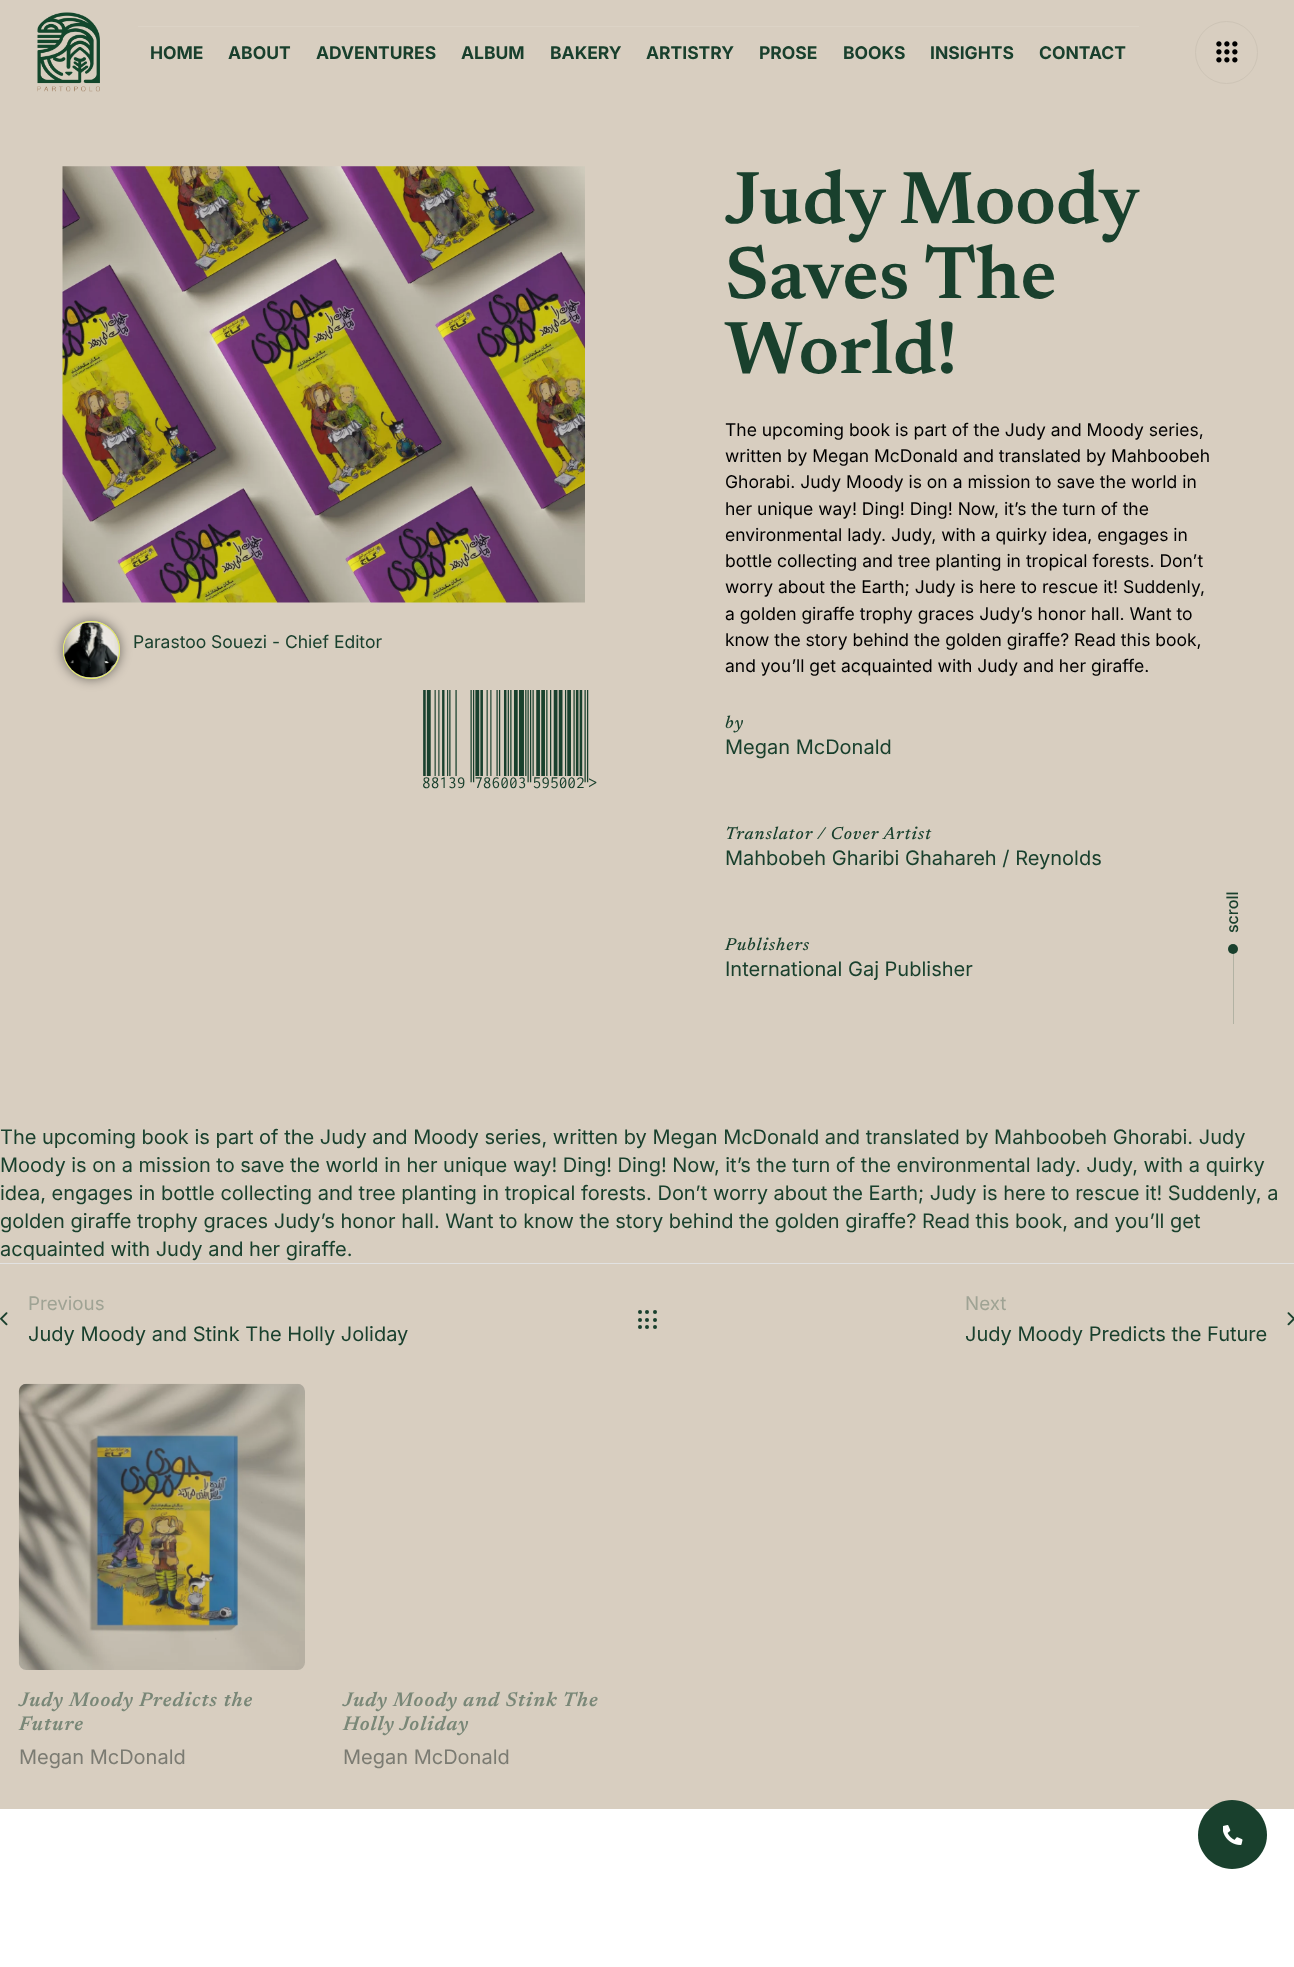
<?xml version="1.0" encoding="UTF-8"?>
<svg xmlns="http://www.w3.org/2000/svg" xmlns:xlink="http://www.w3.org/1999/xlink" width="1294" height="1967">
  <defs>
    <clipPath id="clip1"><path d="M 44 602 h 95 v 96 h -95 z m 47.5 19 c 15.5 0 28.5 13 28.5 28.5 v 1 c 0 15.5 -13 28.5 -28.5 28.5 c -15.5 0 -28.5 -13 -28.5 -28.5 v -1 c 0 -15.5 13 -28.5 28.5 -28.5 z" clip-rule="evenodd" /></clipPath>
  </defs>
  <rect width="100%" height="100%" fill="#ffffff" />
  <rect width="1294" height="1809" fill="#d8cec0" />
  <image x="37" y="12" width="63" height="80" xlink:href="image1.png" />
  <rect x="138" y="26" width="1001" height="1" fill="#dcd3c6" />
  <circle cx="1226.5" cy="52.5" r="31" fill="none" stroke="#cdc4b6" />
  <image x="1216" y="41" width="22" height="22" xlink:href="image2.png" />
  <rect x="1233" y="949" width="1" height="75" fill="#b2b2a3" />
  <circle cx="1233" cy="949" r="5" fill="#19402d" />
  <path d="M 1198 1835 c 0 -19 16 -35 34 -35 c 19 0 35 16 35 35 c 0 19 -16 34 -35 34 c -18 0 -34 -15 -34 -34 z" fill="#19402d" />
  <image x="1223" y="1825" width="20" height="20" xlink:href="image3.png" />
  <image x="62" y="166" width="523" height="437" xlink:href="image4.png" />
  <g clip-path="url(#clip1)">
    <rect x="63" y="621" width="57" height="58" rx="28.5" fill="#000000" fill-opacity="0.5" filter="blur(6px)" />
  </g>
  <rect x="63.5" y="621.5" width="56" height="57" rx="28" fill="none" stroke="#e7f256" />
  <image x="63" y="622" width="56" height="56" xlink:href="image5.png" />
  <rect y="1263" width="1294" height="1" fill="#e2e2e2" />
  <image x="0" y="1312" width="8" height="14" xlink:href="image6.png" />
  <circle cx="655" cy="1327" r="2" fill="#19402d" />
  <circle cx="647" cy="1327" r="2" fill="#19402d" />
  <circle cx="640" cy="1327" r="2" fill="#19402d" />
  <circle cx="655" cy="1320" r="2" fill="#19402d" />
  <circle cx="640" cy="1320" r="2" fill="#19402d" />
  <circle cx="655" cy="1312" r="2" fill="#19402d" />
  <circle cx="647" cy="1312" r="2" fill="#19402d" />
  <circle cx="640" cy="1312" r="2" fill="#19402d" />
  <circle cx="647" cy="1320" r="2" fill="#19402d" />
  <image x="1287" y="1312" width="7" height="14" xlink:href="image7.png" />
  <image x="18" y="1383" width="287" height="287" xlink:href="image8.png" />
  <text x="150" y="59" style="font-family: Inter; font-size: 17.5px; font-weight: bold; fill: #19402d">HOME</text>
  <text x="228" y="59" style="font-family: Inter; font-size: 17.5px; font-weight: bold; fill: #19402d">ABOUT</text>
  <text x="316" y="59" style="font-family: Inter; font-size: 17.5px; font-weight: bold; fill: #19402d">ADVENTURES</text>
  <text x="461" y="59" style="font-family: Inter; font-size: 17.5px; font-weight: bold; fill: #19402d">ALBUM</text>
  <text x="550" y="59" style="font-family: Inter; font-size: 17.5px; font-weight: bold; fill: #19402d">BAKERY</text>
  <text x="646" y="59" style="font-family: Inter; font-size: 17.5px; font-weight: bold; fill: #19402d">ARTISTRY</text>
  <text x="759" y="59" style="font-family: Inter; font-size: 17.5px; font-weight: bold; fill: #19402d">PROSE</text>
  <text x="843" y="59" style="font-family: Inter; font-size: 17.5px; font-weight: bold; fill: #19402d">BOOKS</text>
  <text x="930" y="59" style="font-family: Inter; font-size: 17.5px; font-weight: bold; fill: #19402d">INSIGHTS</text>
  <text x="1039" y="59" style="font-family: Inter; font-size: 17.5px; font-weight: bold; fill: #19402d">CONTACT</text>
  <text x="1238" y="933" transform="rotate(-90 1238 933)" style="font-family: Inter; font-size: 16px; font-weight: 500; fill: #19402d">scroll</text>
  <text x="133" y="648" style="font-family: Inter; font-size: 17.5px; fill: #19402d">Parastoo Souezi - Chief Editor</text>
  <text x="422" y="776" style="font-family: 'Libre Barcode EAN13 Text'; font-size: 106px; fill: #19402d">ISBN9786003595002</text>
  <text x="725" y="223" word-spacing="-2" style="font-family: Newsreader; font-size: 75px; font-weight: 600; fill: #19402d">Judy Moody</text>
  <text x="725" y="298" style="font-family: Newsreader; font-size: 75px; font-weight: 600; fill: #19402d">Saves The</text>
  <text x="725" y="373" style="font-family: Newsreader; font-size: 75px; font-weight: 600; fill: #19402d">World!</text>
  <text x="725" y="436" style="font-family: Inter; font-size: 17.5px; fill: #000000">The upcoming book is part of the Judy and Moody series,</text>
  <text x="725" y="462" style="font-family: Inter; font-size: 17.5px; fill: #000000">written by Megan McDonald and translated by Mahboobeh</text>
  <text x="725" y="488" style="font-family: Inter; font-size: 17.5px; fill: #000000">Ghorabi. Judy Moody is on a mission to save the world in</text>
  <text x="725" y="515" style="font-family: Inter; font-size: 17.5px; fill: #000000">her unique way! Ding! Ding! Now, it’s the turn of the</text>
  <text x="725" y="541" style="font-family: Inter; font-size: 17.5px; fill: #000000">environmental lady. Judy, with a quirky idea, engages in</text>
  <text x="725" y="567" style="font-family: Inter; font-size: 17.5px; fill: #000000">bottle collecting and tree planting in tropical forests. Don’t</text>
  <text x="725" y="593" style="font-family: Inter; font-size: 17.5px; fill: #000000">worry about the Earth; Judy is here to rescue it! Suddenly,</text>
  <text x="725" y="620" style="font-family: Inter; font-size: 17.5px; fill: #000000">a golden giraffe trophy graces Judy’s honor hall. Want to</text>
  <text x="725" y="646" style="font-family: Inter; font-size: 17.5px; fill: #000000">know the story behind the golden giraffe? Read this book,</text>
  <text x="725" y="672" style="font-family: Inter; font-size: 17.5px; fill: #000000">and you’ll get acquainted with Judy and her giraffe.</text>
  <text x="725" y="728" style="font-family: Newsreader; font-size: 17.5px; font-weight: 500; font-style: italic; letter-spacing: 1px; fill: #19402d">by</text>
  <text x="725" y="754" style="font-family: Inter; font-size: 20px; fill: #19402d">Megan McDonald</text>
  <text x="725" y="839" style="font-family: Newsreader; font-size: 17.5px; font-weight: 500; font-style: italic; letter-spacing: 1px; fill: #19402d">Translator / Cover Artist</text>
  <text x="725" y="865" style="font-family: Inter; font-size: 20px; fill: #19402d">Mahbobeh Gharibi Ghahareh / Reynolds</text>
  <text x="725" y="950" style="font-family: Newsreader; font-size: 17.5px; font-weight: 500; font-style: italic; letter-spacing: 1px; fill: #19402d">Publishers</text>
  <text x="725" y="976" style="font-family: Inter; font-size: 20px; fill: #19402d">International Gaj Publisher</text>
  <text x="0" y="1144" style="font-family: Inter; font-size: 20px; fill: #19402d">The upcoming book is part of the Judy and Moody series, written by Megan McDonald and translated by Mahboobeh Ghorabi. Judy</text>
  <text x="0" y="1172" style="font-family: Inter; font-size: 20px; fill: #19402d">Moody is on a mission to save the world in her unique way! Ding! Ding! Now, it’s the turn of the environmental lady. Judy, with a quirky</text>
  <text x="0" y="1200" style="font-family: Inter; font-size: 20px; fill: #19402d">idea, engages in bottle collecting and tree planting in tropical forests. Don’t worry about the Earth; Judy is here to rescue it! Suddenly, a</text>
  <text x="0" y="1228" style="font-family: Inter; font-size: 20px; fill: #19402d">golden giraffe trophy graces Judy’s honor hall. Want to know the story behind the golden giraffe? Read this book, and you’ll get</text>
  <text x="0" y="1256" style="font-family: Inter; font-size: 20px; fill: #19402d">acquainted with Judy and her giraffe.</text>
  <text x="28" y="1310" style="font-family: Inter; font-size: 18.75px; fill: #9fa394">Previous</text>
  <text x="28" y="1341" style="font-family: Inter; font-size: 20px; fill: #19402d">Judy Moody and Stink The Holly Joliday</text>
  <text x="965" y="1310" style="font-family: Inter; font-size: 18.75px; fill: #9fa394">Next</text>
  <text x="965" y="1341" style="font-family: Inter; font-size: 20px; fill: #19402d">Judy Moody Predicts the Future</text>
  <text x="19" y="1706" style="font-family: Newsreader; font-size: 20px; font-weight: 600; font-style: italic; letter-spacing: 1px; fill: #798777">Judy Moody Predicts the</text>
  <text x="19" y="1730" style="font-family: Newsreader; font-size: 20px; font-weight: 600; font-style: italic; letter-spacing: 1px; fill: #798777">Future</text>
  <text x="19" y="1764" style="font-family: Inter; font-size: 20px; fill: #7b7b72">Megan McDonald</text>
  <text x="343" y="1706" style="font-family: Newsreader; font-size: 20px; font-weight: 600; font-style: italic; letter-spacing: 1px; fill: #798777">Judy Moody and Stink The</text>
  <text x="343" y="1730" style="font-family: Newsreader; font-size: 20px; font-weight: 600; font-style: italic; letter-spacing: 1px; fill: #798777">Holly Joliday</text>
  <text x="343" y="1764" style="font-family: Inter; font-size: 20px; fill: #7b7b72">Megan McDonald</text>
</svg>
